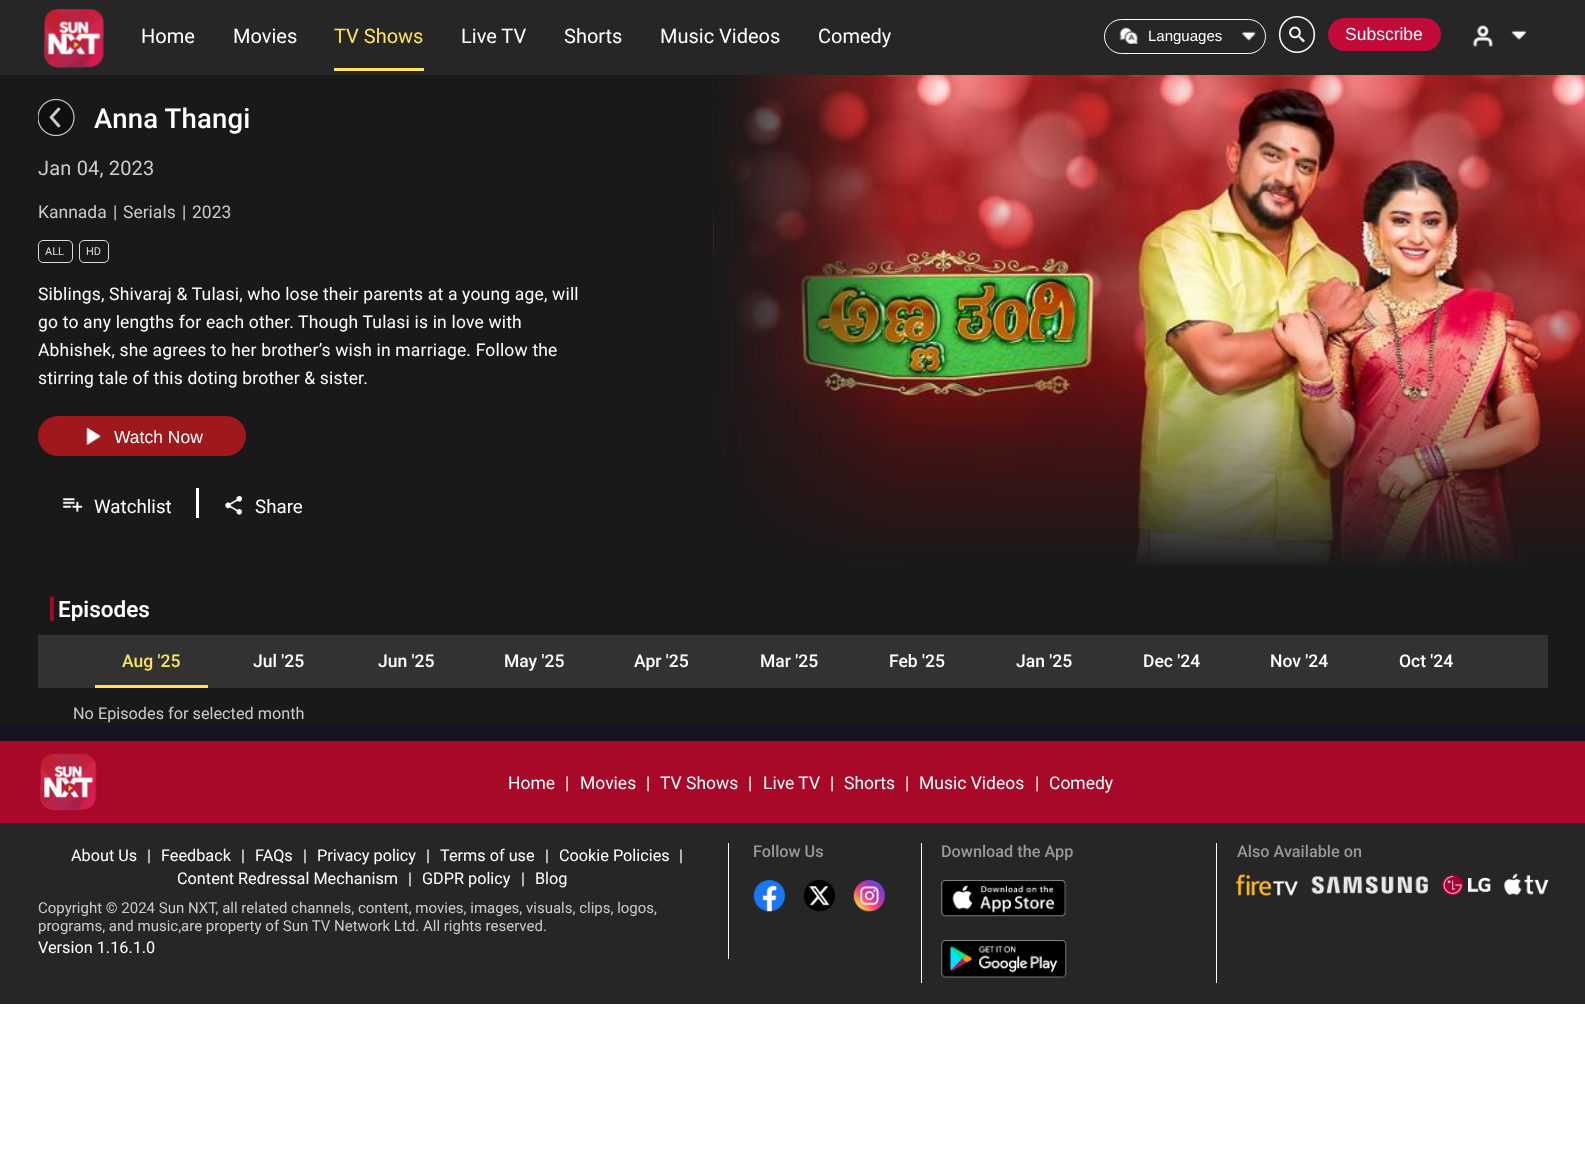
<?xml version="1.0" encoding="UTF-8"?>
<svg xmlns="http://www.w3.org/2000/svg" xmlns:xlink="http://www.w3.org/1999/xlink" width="1585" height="1171">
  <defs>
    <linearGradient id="g1" gradientUnits="userSpaceOnUse" x1="1149" y1="370" x2="1149" y2="570"><stop offset="0" stop-color="#191919" stop-opacity="0" /><stop offset="1" stop-color="#191919" /></linearGradient>
    <clipPath id="clip1"><rect x="58" y="595" width="91" height="26" /></clipPath>
  </defs>
  <rect width="100%" height="100%" fill="#ffffff" />
  <rect y="75" width="1585" height="649" fill="#191919" />
  <rect width="1585" height="75" fill="#262626" />
  <image x="44" y="9" width="60" height="59" xlink:href="image1.png" />
  <rect x="334" y="68" width="90" height="3" fill="#fce45e" />
  <rect x="1104.5" y="19.5" width="161" height="34" rx="17" fill="none" stroke="#ffffff" />
  <image x="1119" y="27" width="19" height="17" xlink:href="image2.png" />
  <image x="1241" y="31" width="15" height="10" xlink:href="image3.png" />
  <image x="1279" y="16" width="36" height="37" xlink:href="image4.png" />
  <rect x="1328" y="18" width="113" height="33" rx="16.5" fill="#c10c3a" />
  <image x="1472" y="25" width="54" height="22" xlink:href="image5.png" />
  <image x="38" y="99" width="37" height="37" xlink:href="image6.png" />
  <rect x="38.5" y="240.5" width="34" height="22" rx="4.5" fill="none" stroke="#dddddd" />
  <rect x="79.5" y="240.5" width="29" height="22" rx="4.5" fill="none" stroke="#dddddd" />
  <rect x="38" y="416" width="208" height="40" rx="20" fill="#9f181b" />
  <image x="86" y="427" width="15" height="18" xlink:href="image7.png" />
  <rect x="196" y="488" width="3" height="30" fill="#ffffff" />
  <image x="62" y="498" width="21" height="14" xlink:href="image8.png" />
  <image x="225" y="496" width="17" height="19" xlink:href="image9.png" />
  <image x="713" y="75" width="872" height="490" xlink:href="image10.png" />
  <rect x="722" y="374" width="863" height="191" fill="url(#g1)" />
  <image x="50" y="596" width="4" height="26" xlink:href="image11.png" />
  <rect x="38" y="635" width="1510" height="53" fill="#323232" />
  <rect x="95" y="685" width="113" height="3" fill="#fce45e" />
  <rect y="724" width="1585" height="17" fill="#151522" />
  <rect y="741" width="1585" height="82" fill="#a80929" />
  <image x="40" y="753" width="57" height="57" xlink:href="image12.png" />
  <rect y="823" width="1585" height="181" fill="#262626" />
  <rect x="728" y="843" width="1" height="116" fill="#ffffff" />
  <rect x="921" y="843" width="1" height="140" fill="#ffffff" />
  <image x="753" y="880" width="32" height="32" xlink:href="image13.png" />
  <image x="803" y="880" width="32" height="32" xlink:href="image14.png" />
  <image x="853" y="880" width="32" height="32" xlink:href="image15.png" />
  <rect x="1216" y="843" width="1" height="140" fill="#ffffff" />
  <image x="941" y="880" width="126" height="37" xlink:href="image16.png" />
  <image x="941" y="940" width="126" height="38" xlink:href="image17.png" />
  <image x="1236" y="873" width="313" height="23" xlink:href="image18.png" />
  <text x="141" y="43" style="font-family: Roboto; font-size: 20px; fill: #ffffff">Home</text>
  <text x="233" y="43" style="font-family: Roboto; font-size: 20px; fill: #ffffff">Movies</text>
  <text x="334" y="43" style="font-family: Roboto; font-size: 20px; fill: #fce45e">TV Shows</text>
  <text x="461" y="43" style="font-family: Roboto; font-size: 20px; fill: #ffffff">Live TV</text>
  <text x="564" y="43" style="font-family: Roboto; font-size: 20px; fill: #ffffff">Shorts</text>
  <text x="660" y="43" style="font-family: Roboto; font-size: 20px; fill: #ffffff">Music Videos</text>
  <text x="818" y="43" style="font-family: Roboto; font-size: 20px; fill: #ffffff">Comedy</text>
  <text x="1148" y="41" style="font-family: Liberation Sans; font-size: 15px; fill: #ffffff">Languages</text>
  <text x="1345" y="40" style="font-family: Liberation Sans; font-size: 17.5px; fill: #ffffff">Subscribe</text>
  <text x="94" y="128" style="font-family: Roboto; font-size: 27.5px; font-weight: 500; letter-spacing: 0.18px; fill: #ffffff">Anna Thangi</text>
  <text x="38" y="175" style="font-family: Roboto; font-size: 20px; letter-spacing: 0.18px; fill: #cccccc">Jan 04, 2023</text>
  <text x="38" y="218" style="font-family: Roboto; font-size: 17.5px; fill: #cccccc">Kannada</text>
  <text x="113" y="218" style="font-family: Roboto; font-size: 17.5px; fill: #cccccc">|</text>
  <text x="123" y="218" style="font-family: Roboto; font-size: 17.5px; fill: #cccccc">Serials</text>
  <text x="182" y="218" style="font-family: Roboto; font-size: 17.5px; fill: #cccccc">|</text>
  <text x="192" y="218" style="font-family: Roboto; font-size: 17.5px; fill: #cccccc">2023</text>
  <text x="45" y="255" style="font-family: Roboto; font-size: 11px; fill: #dddddd">ALL</text>
  <text x="86" y="255" style="font-family: Roboto; font-size: 11px; fill: #dddddd">HD</text>
  <text x="38" y="300" style="font-family: Roboto; font-size: 17.5px; letter-spacing: 0.18px; fill: #ffffff">Siblings, Shivaraj &amp; Tulasi, who lose their parents at a young age, will</text>
  <text x="38" y="328" style="font-family: Roboto; font-size: 17.5px; letter-spacing: 0.18px; fill: #ffffff">go to any lengths for each other. Though Tulasi is in love with</text>
  <text x="38" y="356" style="font-family: Roboto; font-size: 17.5px; letter-spacing: 0.18px; fill: #ffffff">Abhishek, she agrees to her brother’s wish in marriage. Follow the</text>
  <text x="38" y="384" style="font-family: Roboto; font-size: 17.5px; letter-spacing: 0.18px; fill: #ffffff">stirring tale of this doting brother &amp; sister.</text>
  <text x="114" y="443" style="font-family: Liberation Sans; font-size: 17.5px; fill: #ffffff">Watch Now</text>
  <text x="94" y="513" style="font-family: Roboto; font-size: 18.75px; fill: #ffffff">Watchlist</text>
  <text x="255" y="513" style="font-family: Roboto; font-size: 18.75px; fill: #ffffff">Share</text>
  <g clip-path="url(#clip1)">
    <text x="58" y="617" style="font-family: Roboto; font-size: 22.5px; font-weight: 600; fill: #ffffff">Episodes</text>
  </g>
  <text x="122" y="667" style="font-family: Roboto; font-size: 17.5px; font-weight: 500; fill: #fce45e">Aug '25</text>
  <text x="253" y="667" style="font-family: Roboto; font-size: 17.5px; font-weight: 500; fill: #ffffff">Jul '25</text>
  <text x="378" y="667" style="font-family: Roboto; font-size: 17.5px; font-weight: 500; fill: #ffffff">Jun '25</text>
  <text x="504" y="667" style="font-family: Roboto; font-size: 17.5px; font-weight: 500; fill: #ffffff">May '25</text>
  <text x="634" y="667" style="font-family: Roboto; font-size: 17.5px; font-weight: 500; fill: #ffffff">Apr '25</text>
  <text x="760" y="667" style="font-family: Roboto; font-size: 17.5px; font-weight: 500; fill: #ffffff">Mar '25</text>
  <text x="889" y="667" style="font-family: Roboto; font-size: 17.5px; font-weight: 500; fill: #ffffff">Feb '25</text>
  <text x="1016" y="667" style="font-family: Roboto; font-size: 17.5px; font-weight: 500; fill: #ffffff">Jan '25</text>
  <text x="1143" y="667" style="font-family: Roboto; font-size: 17.5px; font-weight: 500; fill: #ffffff">Dec '24</text>
  <text x="1270" y="667" style="font-family: Roboto; font-size: 17.5px; font-weight: 500; fill: #ffffff">Nov '24</text>
  <text x="1399" y="667" style="font-family: Roboto; font-size: 17.5px; font-weight: 500; fill: #ffffff">Oct '24</text>
  <text x="73" y="719" style="font-family: Roboto; font-size: 16.25px; fill: #cccccc">No Episodes for selected month</text>
  <text x="508" y="789" style="font-family: Roboto; font-size: 17.5px; fill: #ffffff">Home</text>
  <text x="565" y="789" style="font-family: Roboto; font-size: 17.5px; fill: #ffffff">|</text>
  <text x="580" y="789" style="font-family: Roboto; font-size: 17.5px; fill: #ffffff">Movies</text>
  <text x="646" y="789" style="font-family: Roboto; font-size: 17.5px; fill: #ffffff">|</text>
  <text x="660" y="789" style="font-family: Roboto; font-size: 17.5px; fill: #ffffff">TV Shows</text>
  <text x="748" y="789" style="font-family: Roboto; font-size: 17.5px; fill: #ffffff">|</text>
  <text x="763" y="789" style="font-family: Roboto; font-size: 17.5px; fill: #ffffff">Live TV</text>
  <text x="830" y="789" style="font-family: Roboto; font-size: 17.5px; fill: #ffffff">|</text>
  <text x="844" y="789" style="font-family: Roboto; font-size: 17.5px; fill: #ffffff">Shorts</text>
  <text x="905" y="789" style="font-family: Roboto; font-size: 17.5px; fill: #ffffff">|</text>
  <text x="919" y="789" style="font-family: Roboto; font-size: 17.5px; fill: #ffffff">Music Videos</text>
  <text x="1035" y="789" style="font-family: Roboto; font-size: 17.5px; fill: #ffffff">|</text>
  <text x="1049" y="789" style="font-family: Roboto; font-size: 17.5px; fill: #ffffff">Comedy</text>
  <text x="71" y="861" style="font-family: Roboto; font-size: 16.25px; fill: #ffffff">About Us</text>
  <text x="147" y="861" style="font-family: Roboto; font-size: 16.25px; fill: #ffffff">|</text>
  <text x="161" y="861" style="font-family: Roboto; font-size: 16.25px; fill: #ffffff">Feedback</text>
  <text x="241" y="861" style="font-family: Roboto; font-size: 16.25px; fill: #ffffff">|</text>
  <text x="255" y="861" style="font-family: Roboto; font-size: 16.25px; fill: #ffffff">FAQs</text>
  <text x="303" y="861" style="font-family: Roboto; font-size: 16.25px; fill: #ffffff">|</text>
  <text x="317" y="861" style="font-family: Roboto; font-size: 16.25px; fill: #ffffff">Privacy policy</text>
  <text x="426" y="861" style="font-family: Roboto; font-size: 16.25px; fill: #ffffff">|</text>
  <text x="440" y="861" style="font-family: Roboto; font-size: 16.25px; fill: #ffffff">Terms of use</text>
  <text x="545" y="861" style="font-family: Roboto; font-size: 16.25px; fill: #ffffff">|</text>
  <text x="559" y="861" style="font-family: Roboto; font-size: 16.25px; fill: #ffffff">Cookie Policies</text>
  <text x="679" y="861" style="font-family: Roboto; font-size: 16.25px; fill: #ffffff">|</text>
  <text x="177" y="884" style="font-family: Roboto; font-size: 16.25px; fill: #ffffff">Content Redressal Mechanism</text>
  <text x="408" y="884" style="font-family: Roboto; font-size: 16.25px; fill: #ffffff">|</text>
  <text x="422" y="884" style="font-family: Roboto; font-size: 16.25px; fill: #ffffff">GDPR policy</text>
  <text x="521" y="884" style="font-family: Roboto; font-size: 16.25px; fill: #ffffff">|</text>
  <text x="535" y="884" style="font-family: Roboto; font-size: 16.25px; fill: #ffffff">Blog</text>
  <text x="38" y="913" style="font-family: Roboto; font-size: 15px; fill: #cccccc">Copyright © 2024 Sun NXT, all related channels, content, movies, images, visuals, clips, logos,</text>
  <text x="38" y="931" style="font-family: Roboto; font-size: 15px; fill: #cccccc">programs, and music,are property of Sun TV Network Ltd. All rights reserved.</text>
  <text x="38" y="953" style="font-family: Roboto; font-size: 16.25px; fill: #ffffff">Version 1.16.1.0</text>
  <text x="753" y="857" style="font-family: Roboto; font-size: 16.25px; font-weight: 500; fill: #999999">Follow Us</text>
  <text x="941" y="857" style="font-family: Roboto; font-size: 16.25px; font-weight: 500; fill: #999999">Download the App</text>
  <text x="1237" y="857" style="font-family: Roboto; font-size: 16.25px; font-weight: 500; fill: #999999">Also Available on</text>
</svg>
